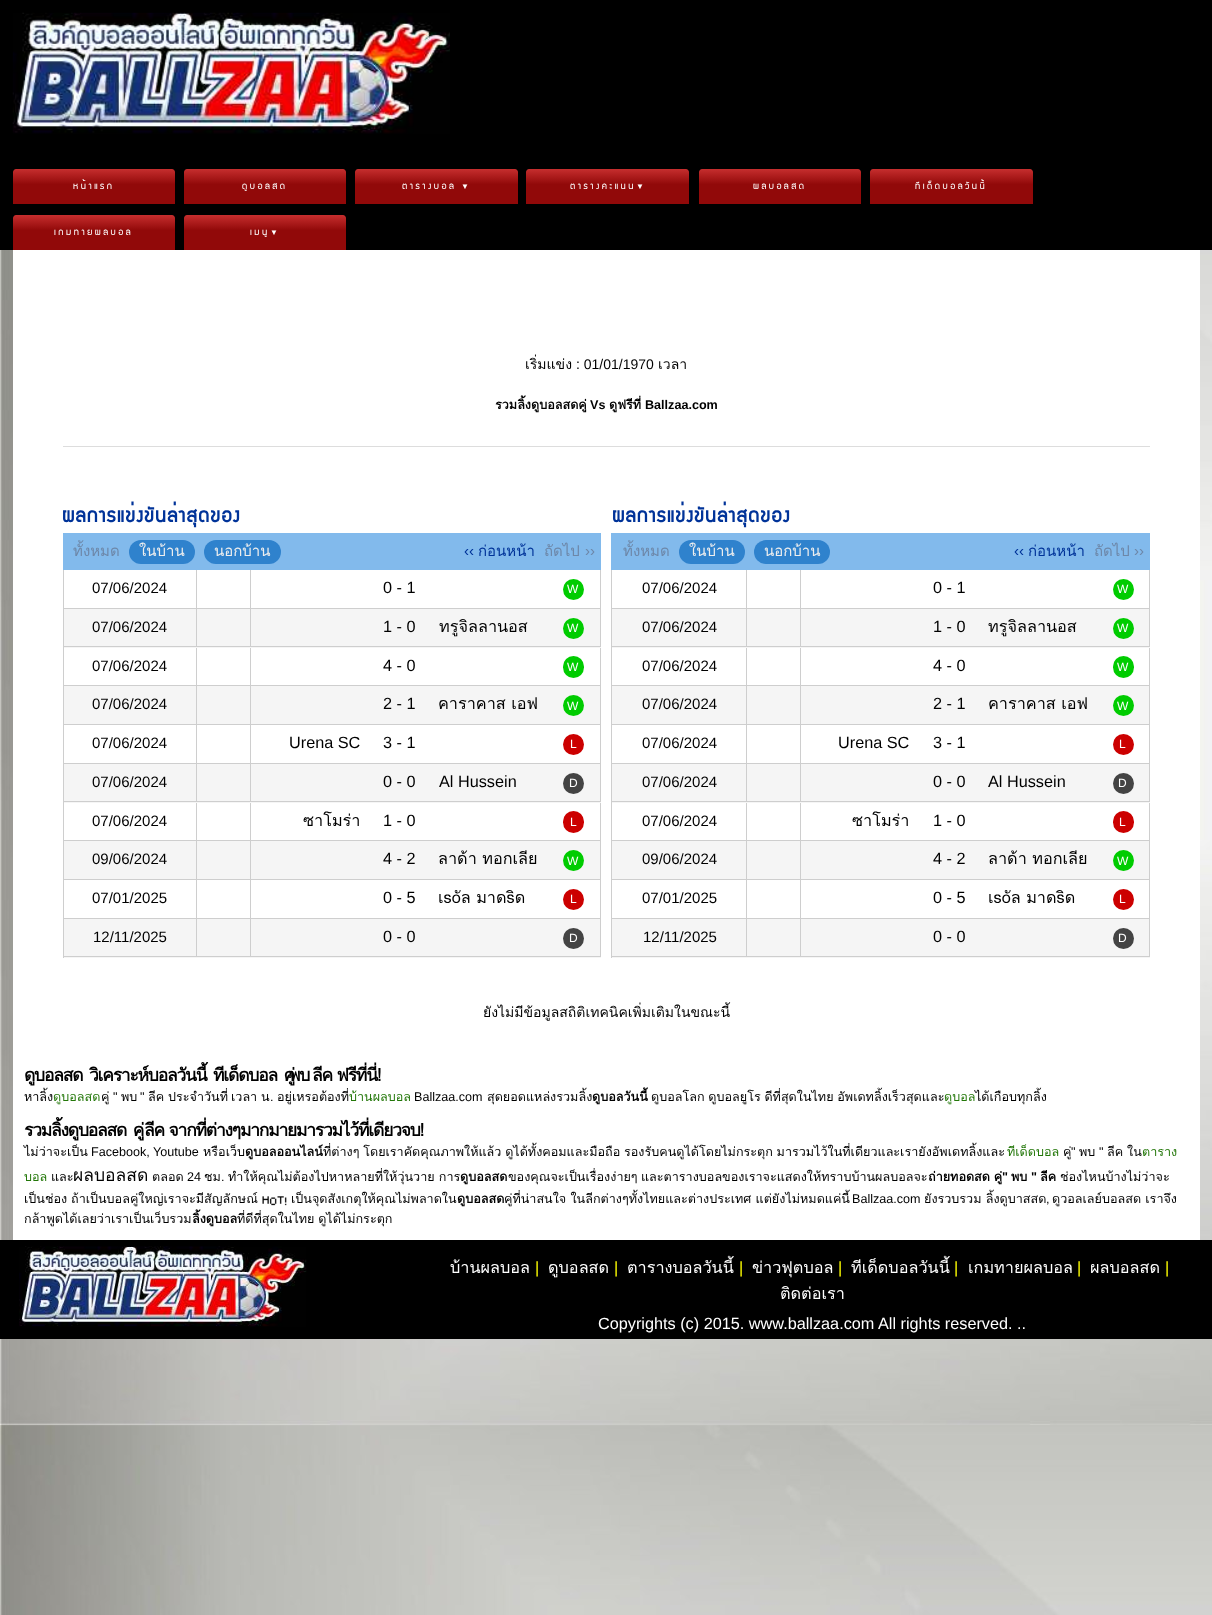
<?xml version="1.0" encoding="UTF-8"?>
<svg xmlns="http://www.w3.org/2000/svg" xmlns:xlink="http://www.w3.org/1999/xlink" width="1212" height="1615">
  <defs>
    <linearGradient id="g1" gradientUnits="userSpaceOnUse" x1="94" y1="169" x2="94" y2="204"><stop offset="0" stop-color="#c62e2e" /><stop offset="0.44" stop-color="#910909" /><stop offset="1" stop-color="#910909" /></linearGradient>
    <linearGradient id="g2" gradientUnits="userSpaceOnUse" x1="265" y1="169" x2="265" y2="204"><stop offset="0" stop-color="#c62e2e" /><stop offset="0.44" stop-color="#910909" /><stop offset="1" stop-color="#910909" /></linearGradient>
    <linearGradient id="g3" gradientUnits="userSpaceOnUse" x1="436" y1="169" x2="436" y2="204"><stop offset="0" stop-color="#c62e2e" /><stop offset="0.44" stop-color="#910909" /><stop offset="1" stop-color="#910909" /></linearGradient>
    <linearGradient id="g4" gradientUnits="userSpaceOnUse" x1="608" y1="169" x2="608" y2="204"><stop offset="0" stop-color="#c62e2e" /><stop offset="0.44" stop-color="#910909" /><stop offset="1" stop-color="#910909" /></linearGradient>
    <linearGradient id="g5" gradientUnits="userSpaceOnUse" x1="780" y1="169" x2="780" y2="204"><stop offset="0" stop-color="#c62e2e" /><stop offset="0.44" stop-color="#910909" /><stop offset="1" stop-color="#910909" /></linearGradient>
    <linearGradient id="g6" gradientUnits="userSpaceOnUse" x1="951" y1="169" x2="951" y2="204"><stop offset="0" stop-color="#c62e2e" /><stop offset="0.44" stop-color="#910909" /><stop offset="1" stop-color="#910909" /></linearGradient>
    <linearGradient id="g7" gradientUnits="userSpaceOnUse" x1="94" y1="215" x2="94" y2="250"><stop offset="0" stop-color="#c62e2e" /><stop offset="0.44" stop-color="#910909" /><stop offset="1" stop-color="#910909" /></linearGradient>
    <linearGradient id="g8" gradientUnits="userSpaceOnUse" x1="265" y1="215" x2="265" y2="250"><stop offset="0" stop-color="#c62e2e" /><stop offset="0.44" stop-color="#910909" /><stop offset="1" stop-color="#910909" /></linearGradient>
  </defs>
  <rect width="100%" height="100%" fill="#ffffff" />
  <image x="0" y="250" width="1212" height="1365" xlink:href="image1.png" />
  <rect width="1212" height="250" fill="#000000" />
  <image x="12" y="12" width="438" height="122" xlink:href="image2.png" />
  <path d="M 16 169 h 156 c 1.5 0 3 1.5 3 3 v 32 h -162 v -32 c 0 -1.5 1.5 -3 3 -3 z" fill="url(#g1)" />
  <path d="M 187 169 h 156 c 1.5 0 3 1.5 3 3 v 32 h -162 v -32 c 0 -1.5 1.5 -3 3 -3 z" fill="url(#g2)" />
  <path d="M 358 169 h 157 c 1.5 0 3 1.5 3 3 v 32 h -163 v -32 c 0 -1.5 1.5 -3 3 -3 z" fill="url(#g3)" />
  <path d="M 529 169 h 157 c 1.5 0 3 1.5 3 3 v 32 h -163 v -32 c 0 -1.5 1.5 -3 3 -3 z" fill="url(#g4)" />
  <path d="M 702 169 h 156 c 1.5 0 3 1.5 3 3 v 32 h -162 v -32 c 0 -1.5 1.5 -3 3 -3 z" fill="url(#g5)" />
  <path d="M 873 169 h 157 c 1.5 0 3 1.5 3 3 v 32 h -163 v -32 c 0 -1.5 1.5 -3 3 -3 z" fill="url(#g6)" />
  <path d="M 16 215 h 156 c 1.5 0 3 1.5 3 3 v 32 h -162 v -32 c 0 -1.5 1.5 -3 3 -3 z" fill="url(#g7)" />
  <path d="M 187 215 h 156 c 1.5 0 3 1.5 3 3 v 32 h -162 v -32 c 0 -1.5 1.5 -3 3 -3 z" fill="url(#g8)" />
  <rect x="13" y="250" width="1187" height="990" fill="#ffffff" />
  <rect x="63" y="446" width="1087" height="1" fill="#dddddd" />
  <rect x="63" y="533" width="538" height="37" fill="#82baec" />
  <rect x="129" y="540" width="66" height="24" rx="12" fill="#2f82cd" />
  <rect x="204" y="540" width="77" height="24" rx="12" fill="#2f82cd" />
  <rect x="63" y="608" width="538" height="1" fill="#cecece" />
  <rect x="63" y="570" width="1" height="39" fill="#cecece" />
  <rect x="196" y="570" width="1" height="38" fill="#cecece" />
  <rect x="250" y="570" width="1" height="38" fill="#cecece" />
  <rect x="600" y="570" width="1" height="38" fill="#cecece" />
  <circle cx="573.5" cy="589.5" r="10.5" fill="#00cc00" />
  <rect x="64" y="609" width="537" height="39" fill="#f5f5f5" />
  <rect x="63" y="646" width="538" height="1" fill="#cecece" />
  <rect x="63" y="609" width="1" height="39" fill="#cecece" />
  <rect x="196" y="609" width="1" height="37" fill="#cecece" />
  <rect x="250" y="609" width="1" height="37" fill="#cecece" />
  <rect x="600" y="609" width="1" height="37" fill="#cecece" />
  <circle cx="573.5" cy="628.5" r="10.5" fill="#00cc00" />
  <rect x="63" y="685" width="538" height="1" fill="#cecece" />
  <rect x="63" y="648" width="1" height="38" fill="#cecece" />
  <rect x="196" y="648" width="1" height="37" fill="#cecece" />
  <rect x="250" y="648" width="1" height="37" fill="#cecece" />
  <rect x="600" y="648" width="1" height="37" fill="#cecece" />
  <rect x="563" y="656" width="21" height="22" rx="10.5" fill="#00cc00" />
  <rect x="64" y="686" width="536" height="38" fill="#f5f5f5" />
  <rect x="63" y="724" width="538" height="1" fill="#cecece" />
  <rect x="63" y="686" width="1" height="39" fill="#cecece" />
  <rect x="196" y="686" width="1" height="38" fill="#cecece" />
  <rect x="250" y="686" width="1" height="38" fill="#cecece" />
  <rect x="600" y="686" width="1" height="38" fill="#cecece" />
  <circle cx="573.5" cy="705.5" r="10.5" fill="#00cc00" />
  <rect x="63" y="763" width="538" height="1" fill="#cecece" />
  <rect x="63" y="725" width="1" height="39" fill="#cecece" />
  <rect x="196" y="725" width="1" height="38" fill="#cecece" />
  <rect x="250" y="725" width="1" height="38" fill="#cecece" />
  <rect x="600" y="725" width="1" height="38" fill="#cecece" />
  <circle cx="573.5" cy="744.5" r="10.5" fill="#cc0000" />
  <rect x="64" y="764" width="537" height="39" fill="#f5f5f5" />
  <rect x="63" y="801" width="538" height="1" fill="#cecece" />
  <rect x="63" y="764" width="1" height="39" fill="#cecece" />
  <rect x="196" y="764" width="1" height="37" fill="#cecece" />
  <rect x="250" y="764" width="1" height="37" fill="#cecece" />
  <rect x="600" y="764" width="1" height="37" fill="#cecece" />
  <circle cx="573.5" cy="783.5" r="10.5" fill="#444444" />
  <rect x="63" y="840" width="538" height="1" fill="#cecece" />
  <rect x="63" y="803" width="1" height="38" fill="#cecece" />
  <rect x="196" y="803" width="1" height="37" fill="#cecece" />
  <rect x="250" y="803" width="1" height="37" fill="#cecece" />
  <rect x="600" y="803" width="1" height="37" fill="#cecece" />
  <rect x="563" y="811" width="21" height="22" rx="10.5" fill="#cc0000" />
  <rect x="64" y="841" width="536" height="38" fill="#f5f5f5" />
  <rect x="63" y="879" width="538" height="1" fill="#cecece" />
  <rect x="63" y="841" width="1" height="39" fill="#cecece" />
  <rect x="196" y="841" width="1" height="38" fill="#cecece" />
  <rect x="250" y="841" width="1" height="38" fill="#cecece" />
  <rect x="600" y="841" width="1" height="38" fill="#cecece" />
  <circle cx="573.5" cy="860.5" r="10.5" fill="#00cc00" />
  <rect x="63" y="918" width="538" height="1" fill="#cecece" />
  <rect x="63" y="880" width="1" height="39" fill="#cecece" />
  <rect x="196" y="880" width="1" height="38" fill="#cecece" />
  <rect x="250" y="880" width="1" height="38" fill="#cecece" />
  <rect x="600" y="880" width="1" height="38" fill="#cecece" />
  <circle cx="573.5" cy="899.5" r="10.5" fill="#cc0000" />
  <rect x="64" y="919" width="537" height="39" fill="#f5f5f5" />
  <rect x="63" y="956" width="538" height="1" fill="#cecece" />
  <rect x="63" y="919" width="1" height="39" fill="#cecece" />
  <rect x="196" y="919" width="1" height="37" fill="#cecece" />
  <rect x="250" y="919" width="1" height="37" fill="#cecece" />
  <rect x="600" y="919" width="1" height="37" fill="#cecece" />
  <circle cx="573.5" cy="938.5" r="10.5" fill="#444444" />
  <rect x="611" y="533" width="539" height="37" fill="#82baec" />
  <rect x="679" y="540" width="66" height="24" rx="12" fill="#2f82cd" />
  <rect x="754" y="540" width="76" height="24" rx="12" fill="#2f82cd" />
  <rect x="611" y="608" width="539" height="1" fill="#cecece" />
  <rect x="611" y="570" width="1" height="39" fill="#cecece" />
  <rect x="746" y="570" width="1" height="38" fill="#cecece" />
  <rect x="800" y="570" width="1" height="38" fill="#cecece" />
  <rect x="1149" y="570" width="1" height="38" fill="#cecece" />
  <circle cx="1123.5" cy="589.5" r="10.5" fill="#00cc00" />
  <rect x="612" y="609" width="538" height="39" fill="#f5f5f5" />
  <rect x="611" y="646" width="539" height="1" fill="#cecece" />
  <rect x="611" y="609" width="1" height="39" fill="#cecece" />
  <rect x="746" y="609" width="1" height="37" fill="#cecece" />
  <rect x="800" y="609" width="1" height="37" fill="#cecece" />
  <rect x="1149" y="609" width="1" height="37" fill="#cecece" />
  <circle cx="1123.5" cy="628.5" r="10.5" fill="#00cc00" />
  <rect x="611" y="685" width="539" height="1" fill="#cecece" />
  <rect x="611" y="648" width="1" height="38" fill="#cecece" />
  <rect x="746" y="648" width="1" height="37" fill="#cecece" />
  <rect x="800" y="648" width="1" height="37" fill="#cecece" />
  <rect x="1149" y="648" width="1" height="37" fill="#cecece" />
  <rect x="1113" y="656" width="21" height="22" rx="10.5" fill="#00cc00" />
  <rect x="612" y="686" width="537" height="38" fill="#f5f5f5" />
  <rect x="611" y="724" width="539" height="1" fill="#cecece" />
  <rect x="611" y="686" width="1" height="39" fill="#cecece" />
  <rect x="746" y="686" width="1" height="38" fill="#cecece" />
  <rect x="800" y="686" width="1" height="38" fill="#cecece" />
  <rect x="1149" y="686" width="1" height="38" fill="#cecece" />
  <circle cx="1123.5" cy="705.5" r="10.5" fill="#00cc00" />
  <rect x="611" y="763" width="539" height="1" fill="#cecece" />
  <rect x="611" y="725" width="1" height="39" fill="#cecece" />
  <rect x="746" y="725" width="1" height="38" fill="#cecece" />
  <rect x="800" y="725" width="1" height="38" fill="#cecece" />
  <rect x="1149" y="725" width="1" height="38" fill="#cecece" />
  <circle cx="1123.5" cy="744.5" r="10.5" fill="#cc0000" />
  <rect x="612" y="764" width="538" height="39" fill="#f5f5f5" />
  <rect x="611" y="801" width="539" height="1" fill="#cecece" />
  <rect x="611" y="764" width="1" height="39" fill="#cecece" />
  <rect x="746" y="764" width="1" height="37" fill="#cecece" />
  <rect x="800" y="764" width="1" height="37" fill="#cecece" />
  <rect x="1149" y="764" width="1" height="37" fill="#cecece" />
  <circle cx="1123.5" cy="783.5" r="10.5" fill="#444444" />
  <rect x="611" y="840" width="539" height="1" fill="#cecece" />
  <rect x="611" y="803" width="1" height="38" fill="#cecece" />
  <rect x="746" y="803" width="1" height="37" fill="#cecece" />
  <rect x="800" y="803" width="1" height="37" fill="#cecece" />
  <rect x="1149" y="803" width="1" height="37" fill="#cecece" />
  <rect x="1113" y="811" width="21" height="22" rx="10.5" fill="#cc0000" />
  <rect x="612" y="841" width="537" height="38" fill="#f5f5f5" />
  <rect x="611" y="879" width="539" height="1" fill="#cecece" />
  <rect x="611" y="841" width="1" height="39" fill="#cecece" />
  <rect x="746" y="841" width="1" height="38" fill="#cecece" />
  <rect x="800" y="841" width="1" height="38" fill="#cecece" />
  <rect x="1149" y="841" width="1" height="38" fill="#cecece" />
  <circle cx="1123.5" cy="860.5" r="10.5" fill="#00cc00" />
  <rect x="611" y="918" width="539" height="1" fill="#cecece" />
  <rect x="611" y="880" width="1" height="39" fill="#cecece" />
  <rect x="746" y="880" width="1" height="38" fill="#cecece" />
  <rect x="800" y="880" width="1" height="38" fill="#cecece" />
  <rect x="1149" y="880" width="1" height="38" fill="#cecece" />
  <circle cx="1123.5" cy="899.5" r="10.5" fill="#cc0000" />
  <rect x="612" y="919" width="538" height="39" fill="#f5f5f5" />
  <rect x="611" y="956" width="539" height="1" fill="#cecece" />
  <rect x="611" y="919" width="1" height="39" fill="#cecece" />
  <rect x="746" y="919" width="1" height="37" fill="#cecece" />
  <rect x="800" y="919" width="1" height="37" fill="#cecece" />
  <rect x="1149" y="919" width="1" height="37" fill="#cecece" />
  <circle cx="1123.5" cy="938.5" r="10.5" fill="#444444" />
  <image x="262" y="1196" width="25" height="10" xlink:href="image3.png" />
  <rect y="1240" width="1212" height="99" fill="#000000" />
  <image x="19" y="1246" width="288" height="81" xlink:href="image4.png" />
  <text x="73" y="189" style="font-family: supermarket; font-size: 10.25px; letter-spacing: 2.5px; fill: #ffffff">หน้าแรก</text>
  <text x="242" y="189" style="font-family: supermarket; font-size: 10.25px; letter-spacing: 2.5px; fill: #ffffff">ดูบอลสด</text>
  <text x="402" y="189" style="font-family: supermarket; font-size: 10.25px; letter-spacing: 2.5px; fill: #ffffff">ตารางบอล</text>
  <text x="461" y="189" style="font-family: Liberation Sans; font-size: 8px; letter-spacing: 2.5px; fill: #ffffff">▼</text>
  <text x="570" y="189" style="font-family: supermarket; font-size: 10.25px; letter-spacing: 2.5px; fill: #ffffff">ตารางคะแนน</text>
  <text x="636" y="189" style="font-family: Liberation Sans; font-size: 8px; letter-spacing: 2.5px; fill: #ffffff">▼</text>
  <text x="753" y="189" style="font-family: supermarket; font-size: 10.25px; letter-spacing: 2.5px; fill: #ffffff">ผลบอลสด</text>
  <text x="915" y="189" style="font-family: supermarket; font-size: 10.25px; letter-spacing: 2.5px; fill: #ffffff">ทีเด็ดบอลวันนี้</text>
  <text x="54" y="235" style="font-family: supermarket; font-size: 10.25px; letter-spacing: 2.5px; fill: #ffffff">เกมทายผลบอล</text>
  <text x="250" y="235" style="font-family: supermarket; font-size: 10.25px; letter-spacing: 2.5px; fill: #ffffff">เมนู</text>
  <text x="270" y="235" style="font-family: Liberation Sans; font-size: 8px; letter-spacing: 2.5px; fill: #ffffff">▼</text>
  <text x="525" y="369" style="font-family: Loma; font-size: 14px; fill: #000000">เริ่มแข่ง</text>
  <text x="576" y="369" style="font-family: Liberation Sans; font-size: 14px; fill: #000000">: 01/01/1970</text>
  <text x="658" y="369" style="font-family: Loma; font-size: 14px; fill: #000000">เวลา</text>
  <text x="495" y="409" style="font-family: Loma; font-size: 12.6px; font-weight: bold; fill: #000000">รวมลิ้งดูบอลสดคู่</text>
  <text x="590" y="409" style="font-family: Liberation Sans; font-size: 12.6px; font-weight: bold; fill: #000000">Vs</text>
  <text x="609" y="409" style="font-family: Loma; font-size: 12.6px; font-weight: bold; fill: #000000">ดูฟรีที่</text>
  <text x="645" y="409" style="font-family: Liberation Sans; font-size: 12.6px; font-weight: bold; fill: #000000">Ballzaa.com</text>
  <text x="62" y="522" style="font-family: supermarket; font-size: 21.25px; font-weight: bold; letter-spacing: 1.25px; fill: #003399">ผลการแข่งขันล่าสุดของ</text>
  <text x="73" y="556" style="font-family: Loma; font-size: 15px; fill: #6d87a8">ทั้งหมด</text>
  <text x="139" y="556" style="font-family: Loma; font-size: 15px; fill: #eeeeee">ในบ้าน</text>
  <text x="214" y="556" style="font-family: Loma; font-size: 15px; fill: #eeeeee">นอกบ้าน</text>
  <text x="464" y="556" style="font-family: Liberation Sans; font-size: 15px; fill: #003399">‹‹</text>
  <text x="478" y="556" style="font-family: Loma; font-size: 15px; fill: #003399">ก่อนหน้า</text>
  <text x="544" y="556" style="font-family: Loma; font-size: 15px; fill: #6d87a8">ถัดไป</text>
  <text x="585" y="556" style="font-family: Liberation Sans; font-size: 15px; fill: #6d87a8">››</text>
  <text x="92" y="593" style="font-family: Liberation Sans; font-size: 15px; fill: #000000">07/06/2024</text>
  <text x="383" y="593" style="font-family: Liberation Sans; font-size: 16.25px; fill: #000000">0 - 1</text>
  <text x="567" y="593" style="font-family: Liberation Sans; font-size: 12px; fill: #ffffff">W</text>
  <text x="92" y="632" style="font-family: Liberation Sans; font-size: 15px; fill: #000000">07/06/2024</text>
  <text x="383" y="632" style="font-family: Liberation Sans; font-size: 16.25px; fill: #000000">1 - 0</text>
  <text x="439" y="632" style="font-family: Loma; font-size: 16.25px; fill: #000000">ทรูจิลลานอส</text>
  <text x="567" y="632" style="font-family: Liberation Sans; font-size: 12px; fill: #ffffff">W</text>
  <text x="92" y="671" style="font-family: Liberation Sans; font-size: 15px; fill: #000000">07/06/2024</text>
  <text x="383" y="671" style="font-family: Liberation Sans; font-size: 16.25px; fill: #000000">4 - 0</text>
  <text x="567" y="671" style="font-family: Liberation Sans; font-size: 12px; fill: #ffffff">W</text>
  <text x="92" y="709" style="font-family: Liberation Sans; font-size: 15px; fill: #000000">07/06/2024</text>
  <text x="383" y="709" style="font-family: Liberation Sans; font-size: 16.25px; fill: #000000">2 - 1</text>
  <text x="438" y="709" style="font-family: Loma; font-size: 16.25px; fill: #000000">คาราคาส เอฟ</text>
  <text x="567" y="710" style="font-family: Liberation Sans; font-size: 12px; fill: #ffffff">W</text>
  <text x="92" y="748" style="font-family: Liberation Sans; font-size: 15px; fill: #000000">07/06/2024</text>
  <text x="289" y="748" style="font-family: Liberation Sans; font-size: 16.25px; fill: #000000">Urena SC</text>
  <text x="383" y="748" style="font-family: Liberation Sans; font-size: 16.25px; fill: #000000">3 - 1</text>
  <text x="570" y="748" style="font-family: Liberation Sans; font-size: 12px; fill: #ffffff">L</text>
  <text x="92" y="787" style="font-family: Liberation Sans; font-size: 15px; fill: #000000">07/06/2024</text>
  <text x="383" y="787" style="font-family: Liberation Sans; font-size: 16.25px; fill: #000000">0 - 0</text>
  <text x="439" y="787" style="font-family: Liberation Sans; font-size: 16.25px; fill: #000000">Al Hussein</text>
  <text x="569" y="787" style="font-family: Liberation Sans; font-size: 12px; fill: #ffffff">D</text>
  <text x="92" y="826" style="font-family: Liberation Sans; font-size: 15px; fill: #000000">07/06/2024</text>
  <text x="303" y="826" style="font-family: Loma; font-size: 16.25px; fill: #000000">ซาโมร่า</text>
  <text x="383" y="826" style="font-family: Liberation Sans; font-size: 16.25px; fill: #000000">1 - 0</text>
  <text x="570" y="826" style="font-family: Liberation Sans; font-size: 12px; fill: #ffffff">L</text>
  <text x="92" y="864" style="font-family: Liberation Sans; font-size: 15px; fill: #000000">09/06/2024</text>
  <text x="383" y="864" style="font-family: Liberation Sans; font-size: 16.25px; fill: #000000">4 - 2</text>
  <text x="438" y="864" style="font-family: Loma; font-size: 16.25px; fill: #000000">ลาด้า ทอกเลีย</text>
  <text x="567" y="865" style="font-family: Liberation Sans; font-size: 12px; fill: #ffffff">W</text>
  <text x="92" y="903" style="font-family: Liberation Sans; font-size: 15px; fill: #000000">07/01/2025</text>
  <text x="383" y="903" style="font-family: Liberation Sans; font-size: 16.25px; fill: #000000">0 - 5</text>
  <text x="438" y="903" style="font-family: Loma; font-size: 16.25px; fill: #000000">เsoัล มาดsิด</text>
  <text x="570" y="903" style="font-family: Liberation Sans; font-size: 12px; fill: #ffffff">L</text>
  <text x="93" y="942" style="font-family: Liberation Sans; font-size: 15px; fill: #000000">12/11/2025</text>
  <text x="383" y="942" style="font-family: Liberation Sans; font-size: 16.25px; fill: #000000">0 - 0</text>
  <text x="569" y="942" style="font-family: Liberation Sans; font-size: 12px; fill: #ffffff">D</text>
  <text x="612" y="522" style="font-family: supermarket; font-size: 21.25px; font-weight: bold; letter-spacing: 1.25px; fill: #003399">ผลการแข่งขันล่าสุดของ</text>
  <text x="623" y="556" style="font-family: Loma; font-size: 15px; fill: #6d87a8">ทั้งหมด</text>
  <text x="689" y="556" style="font-family: Loma; font-size: 15px; fill: #eeeeee">ในบ้าน</text>
  <text x="764" y="556" style="font-family: Loma; font-size: 15px; fill: #eeeeee">นอกบ้าน</text>
  <text x="1014" y="556" style="font-family: Liberation Sans; font-size: 15px; fill: #003399">‹‹</text>
  <text x="1028" y="556" style="font-family: Loma; font-size: 15px; fill: #003399">ก่อนหน้า</text>
  <text x="1094" y="556" style="font-family: Loma; font-size: 15px; fill: #6d87a8">ถัดไป</text>
  <text x="1134" y="556" style="font-family: Liberation Sans; font-size: 15px; fill: #6d87a8">››</text>
  <text x="642" y="593" style="font-family: Liberation Sans; font-size: 15px; fill: #000000">07/06/2024</text>
  <text x="933" y="593" style="font-family: Liberation Sans; font-size: 16.25px; fill: #000000">0 - 1</text>
  <text x="1117" y="593" style="font-family: Liberation Sans; font-size: 12px; fill: #ffffff">W</text>
  <text x="642" y="632" style="font-family: Liberation Sans; font-size: 15px; fill: #000000">07/06/2024</text>
  <text x="933" y="632" style="font-family: Liberation Sans; font-size: 16.25px; fill: #000000">1 - 0</text>
  <text x="988" y="632" style="font-family: Loma; font-size: 16.25px; fill: #000000">ทรูจิลลานอส</text>
  <text x="1117" y="632" style="font-family: Liberation Sans; font-size: 12px; fill: #ffffff">W</text>
  <text x="642" y="671" style="font-family: Liberation Sans; font-size: 15px; fill: #000000">07/06/2024</text>
  <text x="933" y="671" style="font-family: Liberation Sans; font-size: 16.25px; fill: #000000">4 - 0</text>
  <text x="1117" y="671" style="font-family: Liberation Sans; font-size: 12px; fill: #ffffff">W</text>
  <text x="642" y="709" style="font-family: Liberation Sans; font-size: 15px; fill: #000000">07/06/2024</text>
  <text x="933" y="709" style="font-family: Liberation Sans; font-size: 16.25px; fill: #000000">2 - 1</text>
  <text x="988" y="709" style="font-family: Loma; font-size: 16.25px; fill: #000000">คาราคาส เอฟ</text>
  <text x="1117" y="710" style="font-family: Liberation Sans; font-size: 12px; fill: #ffffff">W</text>
  <text x="642" y="748" style="font-family: Liberation Sans; font-size: 15px; fill: #000000">07/06/2024</text>
  <text x="838" y="748" style="font-family: Liberation Sans; font-size: 16.25px; fill: #000000">Urena SC</text>
  <text x="933" y="748" style="font-family: Liberation Sans; font-size: 16.25px; fill: #000000">3 - 1</text>
  <text x="1119" y="748" style="font-family: Liberation Sans; font-size: 12px; fill: #ffffff">L</text>
  <text x="642" y="787" style="font-family: Liberation Sans; font-size: 15px; fill: #000000">07/06/2024</text>
  <text x="933" y="787" style="font-family: Liberation Sans; font-size: 16.25px; fill: #000000">0 - 0</text>
  <text x="988" y="787" style="font-family: Liberation Sans; font-size: 16.25px; fill: #000000">Al Hussein</text>
  <text x="1118" y="787" style="font-family: Liberation Sans; font-size: 12px; fill: #ffffff">D</text>
  <text x="642" y="826" style="font-family: Liberation Sans; font-size: 15px; fill: #000000">07/06/2024</text>
  <text x="852" y="826" style="font-family: Loma; font-size: 16.25px; fill: #000000">ซาโมร่า</text>
  <text x="933" y="826" style="font-family: Liberation Sans; font-size: 16.25px; fill: #000000">1 - 0</text>
  <text x="1119" y="826" style="font-family: Liberation Sans; font-size: 12px; fill: #ffffff">L</text>
  <text x="642" y="864" style="font-family: Liberation Sans; font-size: 15px; fill: #000000">09/06/2024</text>
  <text x="933" y="864" style="font-family: Liberation Sans; font-size: 16.25px; fill: #000000">4 - 2</text>
  <text x="988" y="864" style="font-family: Loma; font-size: 16.25px; fill: #000000">ลาด้า ทอกเลีย</text>
  <text x="1117" y="865" style="font-family: Liberation Sans; font-size: 12px; fill: #ffffff">W</text>
  <text x="642" y="903" style="font-family: Liberation Sans; font-size: 15px; fill: #000000">07/01/2025</text>
  <text x="933" y="903" style="font-family: Liberation Sans; font-size: 16.25px; fill: #000000">0 - 5</text>
  <text x="988" y="903" style="font-family: Loma; font-size: 16.25px; fill: #000000">เsoัล มาดsิด</text>
  <text x="1119" y="903" style="font-family: Liberation Sans; font-size: 12px; fill: #ffffff">L</text>
  <text x="643" y="942" style="font-family: Liberation Sans; font-size: 15px; fill: #000000">12/11/2025</text>
  <text x="933" y="942" style="font-family: Liberation Sans; font-size: 16.25px; fill: #000000">0 - 0</text>
  <text x="1118" y="942" style="font-family: Liberation Sans; font-size: 12px; fill: #ffffff">D</text>
  <text x="483" y="1017" style="font-family: Loma; font-size: 14px; fill: #000000">ยังไม่มีข้อมูลสถิติเทคนิคเพิ่มเติมในขณะนี้</text>
  <text x="24" y="1081" word-spacing="2" style="font-family: Loma; font-size: 17.5px; font-weight: bold; letter-spacing: -1.25px; fill: #000000">ดูบอลสด วิเคราะห์บอลวันนี้ ทีเด็ดบอล คู่</text>
  <text x="289" y="1081" style="font-family: Loma; font-size: 17.5px; font-weight: bold; letter-spacing: -1.25px; fill: #000000">พบ</text>
  <text x="312" y="1081" style="font-family: Loma; font-size: 17.5px; font-weight: bold; letter-spacing: -1.25px; fill: #000000">ลีค ฟรีที่นี่!</text>
  <text x="24" y="1101" style="font-family: Loma; font-size: 12.6px; fill: #000000">หาลิ้ง</text>
  <text x="113" y="1101" style="font-family: Liberation Sans; font-size: 12.6px; fill: #000000">"</text>
  <text x="168" y="1101" style="font-family: Loma; font-size: 12.6px; fill: #000000">ประจำวันที่</text>
  <text x="277" y="1101" style="font-family: Loma; font-size: 12.6px; fill: #000000">อยู่เหรอต้องที่</text>
  <text x="349" y="1101" style="font-family: Loma; font-size: 12.6px; fill: #237709">บ้านผลบอล</text>
  <text x="414" y="1101" style="font-family: Liberation Sans; font-size: 12.6px; fill: #000000">Ballzaa.com</text>
  <text x="487" y="1101" style="font-family: Loma; font-size: 12.6px; fill: #000000">สุดยอดแหล่งรวมลิ้ง</text>
  <text x="592" y="1101" style="font-family: Loma; font-size: 12.6px; font-weight: bold; fill: #000000">ดูบอลวันนี้</text>
  <text x="651" y="1101" word-spacing="-0.5" style="font-family: Loma; font-size: 12.6px; fill: #000000">ดูบอลโลก ดูบอลยูโร ดีที่สุดในไทย อัพเดทลิ้งเร็วสุดและ</text>
  <text x="53" y="1101" style="font-family: Loma; font-size: 12.6px; fill: #237709">ดูบอลสด</text>
  <text x="101" y="1101" style="font-family: Loma; font-size: 12.6px; fill: #000000">คู่</text>
  <text x="121" y="1101" style="font-family: Loma; font-size: 12.6px; fill: #000000">พบ</text>
  <text x="140" y="1101" style="font-family: Liberation Sans; font-size: 12.6px; fill: #000000">"</text>
  <text x="148" y="1101" style="font-family: Loma; font-size: 12.6px; fill: #000000">ลีค</text>
  <text x="231" y="1101" style="font-family: Loma; font-size: 12.6px; fill: #000000">เวลา</text>
  <text x="261" y="1101" style="font-family: Loma; font-size: 12.6px; fill: #000000">น</text>
  <text x="270" y="1101" style="font-family: Liberation Sans; font-size: 12.6px; fill: #000000">.</text>
  <text x="944" y="1101" style="font-family: Loma; font-size: 12.6px; fill: #237709">ดูบอล</text>
  <text x="975" y="1101" style="font-family: Loma; font-size: 12.6px; fill: #000000">ได้เกือบทุกลิ้ง</text>
  <text x="24" y="1136" word-spacing="2" style="font-family: Loma; font-size: 17.5px; font-weight: bold; letter-spacing: -1.25px; fill: #000000">รวมลิ้งดูบอลสด คู่</text>
  <text x="144" y="1136" style="font-family: Loma; font-size: 17.5px; font-weight: bold; letter-spacing: -1.25px; fill: #000000">ลีค จากที่ต่างๆมากมายมารวมไว้ที่เดียวจบ!</text>
  <text x="24" y="1156" style="font-family: Loma; font-size: 12.6px; fill: #000000">ไม่ว่าจะเป็น</text>
  <text x="91" y="1156" style="font-family: Liberation Sans; font-size: 12.6px; fill: #000000">Facebook, Youtube</text>
  <text x="203" y="1156" style="font-family: Loma; font-size: 12.6px; fill: #000000">หรือเว็บ</text>
  <text x="245" y="1156" style="font-family: Loma; font-size: 12.6px; font-weight: bold; fill: #000000">ดูบอลออนไลน์</text>
  <text x="323" y="1156" word-spacing="-0.5" style="font-family: Loma; font-size: 12.6px; fill: #000000">ที่ต่างๆ โดยเราคัดคุณภาพให้แล้ว ดูได้ทั้งคอมและมือถือ รองรับคนดูได้โดยไม่กระตุก มารวมไว้ในที่เดียวและเรายังอัพเดทลิ้งและ</text>
  <text x="1007" y="1156" style="font-family: Loma; font-size: 12.6px; fill: #237709">ทีเด็ดบอล</text>
  <text x="1063" y="1156" style="font-family: Loma; font-size: 12.6px; fill: #000000">คู่</text>
  <text x="1071" y="1156" style="font-family: Liberation Sans; font-size: 12.6px; fill: #000000">"</text>
  <text x="1127" y="1156" style="font-family: Loma; font-size: 12.6px; fill: #000000">ใน</text>
  <text x="1079" y="1156" style="font-family: Loma; font-size: 12.6px; fill: #000000">พบ</text>
  <text x="1099" y="1156" style="font-family: Liberation Sans; font-size: 12.6px; fill: #000000">"</text>
  <text x="1107" y="1156" style="font-family: Loma; font-size: 12.6px; fill: #000000">ลีค</text>
  <text x="1142" y="1156" style="font-family: Loma; font-size: 12.6px; fill: #237709">ตาราง</text>
  <text x="73" y="1181" style="font-family: Loma; font-size: 17.5px; fill: #000000">ผลบอลสด</text>
  <text x="187" y="1181" style="font-family: Liberation Sans; font-size: 12.6px; fill: #000000">24</text>
  <text x="228" y="1181" style="font-family: Loma; font-size: 12.6px; fill: #000000">ทำให้คุณไม่ต้องไปหาหลายที่ให้วุ่นวาย การ</text>
  <text x="508" y="1181" style="font-family: Loma; font-size: 12.6px; fill: #000000">ของคุณจะเป็นเรื่องง่ายๆ</text>
  <text x="641" y="1181" style="font-family: Loma; font-size: 12.6px; fill: #000000">และตารางบอลของเราจะแสดงให้ทราบบ้านผลบอลจะ</text>
  <text x="928" y="1181" word-spacing="-0.5" style="font-family: Loma; font-size: 12.6px; font-weight: bold; fill: #000000">ถ่ายทอดสด คู่</text>
  <text x="1002" y="1181" style="font-family: Liberation Sans; font-size: 12.6px; font-weight: bold; fill: #000000">"</text>
  <text x="1060" y="1181" style="font-family: Loma; font-size: 12.6px; fill: #000000">ช่องไหนบ้างไม่ว่าจะ</text>
  <text x="24" y="1181" style="font-family: Loma; font-size: 12.6px; fill: #237709">บอล</text>
  <text x="51" y="1181" style="font-family: Loma; font-size: 12.6px; fill: #000000">และ</text>
  <text x="152" y="1181" style="font-family: Loma; font-size: 12.6px; fill: #000000">ตลอด</text>
  <text x="204" y="1181" style="font-family: Loma; font-size: 12.6px; fill: #000000">ชม</text>
  <text x="221" y="1181" style="font-family: Liberation Sans; font-size: 12.6px; fill: #000000">.</text>
  <text x="460" y="1181" style="font-family: Loma; font-size: 12.6px; font-weight: bold; fill: #000000">ดูบอลสด</text>
  <text x="1011" y="1181" style="font-family: Loma; font-size: 12.6px; font-weight: bold; fill: #000000">พบ</text>
  <text x="1031" y="1181" style="font-family: Liberation Sans; font-size: 12.6px; font-weight: bold; fill: #000000">"</text>
  <text x="1040" y="1181" style="font-family: Loma; font-size: 12.6px; font-weight: bold; fill: #000000">ลีค</text>
  <text x="24" y="1203" style="font-family: Loma; font-size: 12.6px; fill: #000000">เป็นช่อง</text>
  <text x="71" y="1203" style="font-family: Loma; font-size: 12.6px; fill: #000000">ถ้าเป็นบอลคู่ใหญ่เราจะมีสัญลักษณ์</text>
  <text x="291" y="1203" style="font-family: Loma; font-size: 12.6px; fill: #000000">เป็นจุดสังเกตุให้คุณไม่พลาดใน</text>
  <text x="457" y="1203" style="font-family: Loma; font-size: 12.6px; font-weight: bold; fill: #000000">ดูบอลสด</text>
  <text x="504" y="1203" style="font-family: Loma; font-size: 12.6px; fill: #000000">คู่ที่น่าสนใจ ในลีกต่างๆทั้งไทยและต่างประเทศ แต่ยังไม่หมดแค่นี้</text>
  <text x="852" y="1203" style="font-family: Liberation Sans; font-size: 12.6px; fill: #000000">Ballzaa.com</text>
  <text x="924" y="1203" style="font-family: Loma; font-size: 12.6px; fill: #000000">ยังรวบรวม ลิ้งดูบาสสด</text>
  <text x="1046" y="1203" style="font-family: Liberation Sans; font-size: 12.6px; fill: #000000">,</text>
  <text x="1052" y="1203" style="font-family: Loma; font-size: 12.6px; fill: #000000">ดูวอลเลย์บอลสด เราจึง</text>
  <text x="24" y="1223" style="font-family: Loma; font-size: 12.6px; fill: #000000">กล้าพูดได้เลยว่าเราเป็นเว็บรวม</text>
  <text x="192" y="1223" style="font-family: Loma; font-size: 12.6px; font-weight: bold; fill: #000000">ลิ้งดูบอล</text>
  <text x="237" y="1223" word-spacing="-0.5" style="font-family: Loma; font-size: 12.6px; fill: #000000">ที่ดีที่สุดในไทย ดูได้ไม่กระตุก</text>
  <text x="450" y="1273" style="font-family: Loma; font-size: 16.25px; fill: #ffffff">บ้านผลบอล</text>
  <text x="535" y="1273" style="font-family: Liberation Sans; font-size: 16.25px; fill: #ffff00">|</text>
  <text x="548" y="1273" style="font-family: Loma; font-size: 16.25px; fill: #ffffff">ดูบอลสด</text>
  <text x="614" y="1273" style="font-family: Liberation Sans; font-size: 16.25px; fill: #ffff00">|</text>
  <text x="627" y="1273" style="font-family: Loma; font-size: 16.25px; fill: #ffffff">ตารางบอลวันนี้</text>
  <text x="739" y="1273" style="font-family: Liberation Sans; font-size: 16.25px; fill: #ffff00">|</text>
  <text x="752" y="1273" style="font-family: Loma; font-size: 16.25px; fill: #ffffff">ข่าวฟุตบอล</text>
  <text x="838" y="1273" style="font-family: Liberation Sans; font-size: 16.25px; fill: #ffff00">|</text>
  <text x="851" y="1273" style="font-family: Loma; font-size: 16.25px; fill: #ffffff">ทีเด็ดบอลวันนี้</text>
  <text x="954" y="1273" style="font-family: Liberation Sans; font-size: 16.25px; fill: #ffff00">|</text>
  <text x="968" y="1273" style="font-family: Loma; font-size: 16.25px; fill: #ffffff">เกมทายผลบอล</text>
  <text x="1077" y="1273" style="font-family: Liberation Sans; font-size: 16.25px; fill: #ffff00">|</text>
  <text x="1090" y="1273" style="font-family: Loma; font-size: 16.25px; fill: #ffffff">ผลบอลสด</text>
  <text x="1165" y="1273" style="font-family: Liberation Sans; font-size: 16.25px; fill: #ffff00">|</text>
  <text x="780" y="1299" style="font-family: Loma; font-size: 16.25px; fill: #ffffff">ติดต่อเรา</text>
  <text x="598" y="1329" style="font-family: Liberation Sans; font-size: 16.25px; fill: #ffffff">Copyrights (c) 2015. www.ballzaa.com All rights reserved. ..</text>
</svg>
